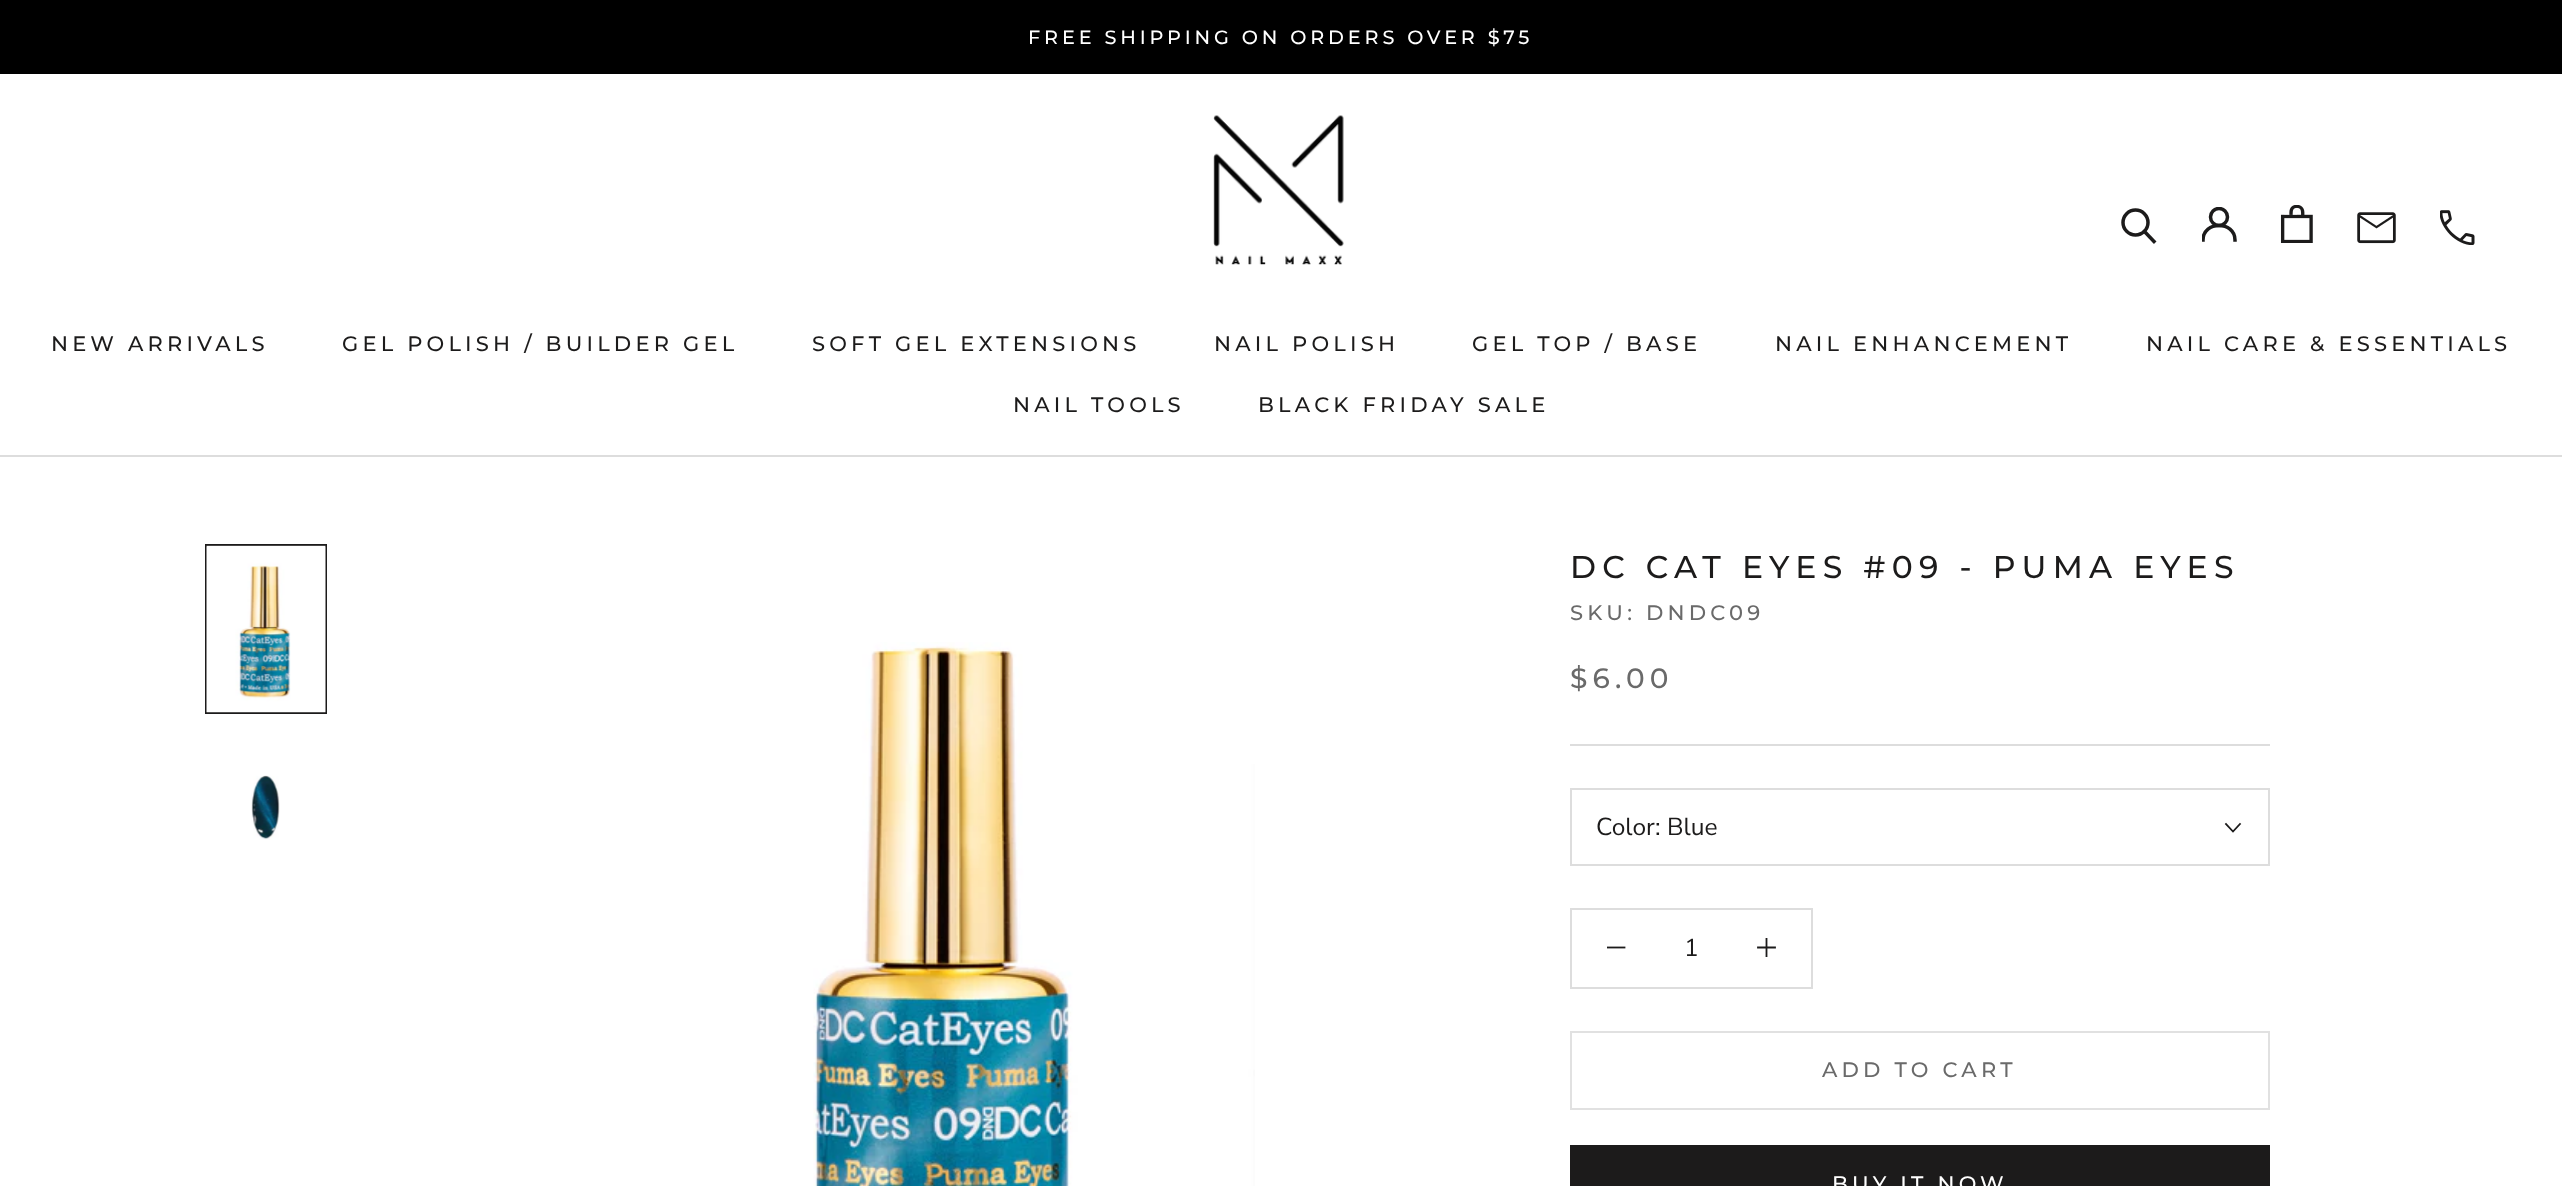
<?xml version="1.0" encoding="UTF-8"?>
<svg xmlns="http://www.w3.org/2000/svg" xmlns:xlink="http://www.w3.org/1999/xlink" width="2562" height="1186">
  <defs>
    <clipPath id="clip1"><rect x="2202" y="207" width="35" height="35" /></clipPath>
    <clipPath id="clip2"><rect x="1607" y="938" width="19" height="19" /></clipPath>
  </defs>
  <rect width="100%" height="100%" fill="#ffffff" />
  <rect width="2562" height="74" fill="#000000" />
  <rect y="455" width="2562" height="2" fill="#dddddd" />
  <image x="1213" y="115" width="131" height="150" xlink:href="image1.png" />
  <path d="M 2154 241.5 l -9.5 -10" fill="none" stroke="#1c1b1b" stroke-width="3.5" stroke-linecap="square" />
  <circle cx="2135.5" cy="222.5" r="12.5" fill="none" stroke="#1c1b1b" stroke-width="3.5" />
  <g clip-path="url(#clip1)">
    <path d="M 2203 240 c 0 -19.5 32 -19.5 32 0" fill="none" stroke="#1c1b1b" stroke-width="3.5" stroke-linecap="square" />
    <circle cx="2219" cy="217" r="8.5" fill="none" stroke="#1c1b1b" stroke-width="3.5" />
  </g>
  <image x="2280" y="205" width="33" height="38" xlink:href="image2.png" />
  <image x="2357" y="212" width="39" height="32" xlink:href="image3.png" />
  <image x="2440" y="210" width="35" height="35" xlink:href="image4.png" />
  <rect x="206" y="545" width="120" height="168" fill="none" stroke="#1c1b1b" stroke-width="2" />
  <image x="206" y="545" width="120" height="168" xlink:href="image5.png" />
  <image x="251" y="775" width="29" height="65" xlink:href="image6.png" />
  <image x="813" y="642" width="442" height="544" xlink:href="image7.png" />
  <rect x="1570" y="744" width="700" height="2" fill="#dddddd" />
  <rect x="1571" y="789" width="698" height="76" fill="none" stroke="#dddddd" stroke-width="2" />
  <path d="M 2240 824 l -7 7.5 l -7 -7.5" fill="none" stroke="#1c1b1b" stroke-width="1.8" stroke-linecap="square" />
  <rect x="1571" y="909" width="241" height="79" fill="none" stroke="#dddddd" stroke-width="2" />
  <g clip-path="url(#clip2)">
    <path d="M 1607.5 947.5 h 17" fill="none" stroke="#1c1b1b" stroke-width="1.8" stroke-linecap="square" />
  </g>
  <path d="M 1766.5 939 v 17 m -8.5 -8.5 h 17" fill="none" stroke="#1c1b1b" stroke-width="1.8" stroke-linecap="square" />
  <rect x="1571" y="1032" width="698" height="77" fill="none" stroke="#e1e1e1" stroke-width="2" />
  <rect x="1571" y="1146" width="698" height="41" fill="none" stroke="#1c1b1b" stroke-width="2" />
  <rect x="1572" y="1147" width="696" height="39" fill="#1c1b1b" />
  <text x="1028" y="44" style="font-family: Montserrat; font-size: 19.25px; font-weight: 500; letter-spacing: 3.85px; fill: #ffffff">FREE SHIPPING ON ORDERS OVER $75</text>
  <text x="51" y="351" style="font-family: Montserrat; font-size: 21px; font-weight: 500; letter-spacing: 4.2px; fill: #1c1b1b">NEW ARRIVALS</text>
  <text x="342" y="351" style="font-family: Montserrat; font-size: 21px; font-weight: 500; letter-spacing: 4.2px; fill: #1c1b1b">GEL POLISH / BUILDER GEL</text>
  <text x="812" y="351" style="font-family: Montserrat; font-size: 21px; font-weight: 500; letter-spacing: 4.2px; fill: #1c1b1b">SOFT GEL EXTENSIONS</text>
  <text x="1214" y="351" style="font-family: Montserrat; font-size: 21px; font-weight: 500; letter-spacing: 4.2px; fill: #1c1b1b">NAIL POLISH</text>
  <text x="1472" y="351" style="font-family: Montserrat; font-size: 21px; font-weight: 500; letter-spacing: 4.2px; fill: #1c1b1b">GEL TOP / BASE</text>
  <text x="1775" y="351" style="font-family: Montserrat; font-size: 21px; font-weight: 500; letter-spacing: 4.2px; fill: #1c1b1b">NAIL ENHANCEMENT</text>
  <text x="2146" y="351" style="font-family: Montserrat; font-size: 21px; font-weight: 500; letter-spacing: 4.2px; fill: #1c1b1b">NAIL CARE &amp; ESSENTIALS</text>
  <text x="1013" y="412" style="font-family: Montserrat; font-size: 21px; font-weight: 500; letter-spacing: 4.2px; fill: #1c1b1b">NAIL TOOLS</text>
  <text x="1258" y="412" style="font-family: Montserrat; font-size: 21px; font-weight: 500; letter-spacing: 4.2px; fill: #1c1b1b">BLACK FRIDAY SALE</text>
  <text x="1570" y="578" style="font-family: Montserrat; font-size: 31.5px; font-weight: 500; letter-spacing: 6.3px; fill: #1c1b1b">DC CAT EYES #09 - PUMA EYES</text>
  <text x="1570" y="620" style="font-family: Montserrat; font-size: 21px; font-weight: 500; letter-spacing: 4.2px; fill: #6a6a6a">SKU: DNDC09</text>
  <text x="1570" y="688" style="font-family: Montserrat; font-size: 28px; font-weight: 500; letter-spacing: 5px; fill: #6a6a6a">$6.00</text>
  <text x="1596" y="835" style="font-family: Nunito Sans; font-size: 24.5px; fill: #1c1b1b">Color: Blue</text>
  <text x="1684" y="956" style="font-family: Nunito Sans; font-size: 24.5px; fill: #1c1b1b">1</text>
  <text x="1822" y="1077" style="font-family: Montserrat; font-size: 21px; font-weight: 500; letter-spacing: 4.2px; fill: #6a6a6a">ADD TO CART</text>
  <text x="1832" y="1191" style="font-family: Montserrat; font-size: 21px; font-weight: 500; letter-spacing: 4.2px; fill: #ffffff">BUY IT NOW</text>
</svg>
